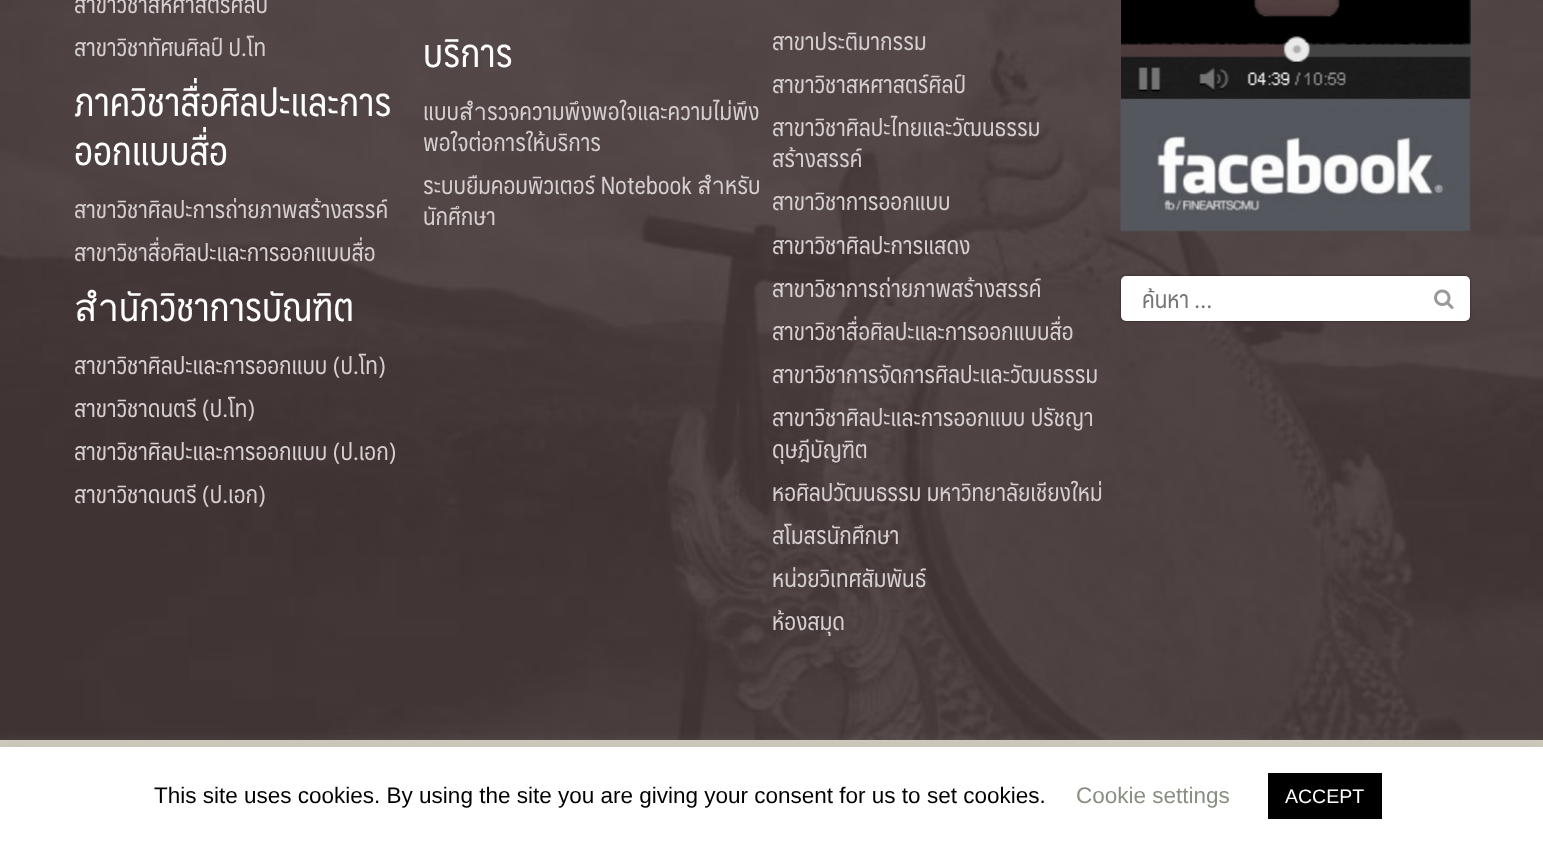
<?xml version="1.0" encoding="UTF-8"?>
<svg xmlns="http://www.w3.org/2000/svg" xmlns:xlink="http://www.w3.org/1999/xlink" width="1543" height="844">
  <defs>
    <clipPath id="clip1"><rect x="1142" y="276" width="268" height="44" /></clipPath>
  </defs>
  <rect width="100%" height="100%" fill="#ffffff" />
  <image x="0" y="0" width="1543" height="740" xlink:href="image1.png" />
  <image x="1121" y="0" width="350" height="99" xlink:href="image2.png" />
  <image x="1120" y="98" width="351" height="134" xlink:href="image3.png" />
  <rect x="1121" y="276" width="349" height="45" rx="5" fill="#000000" fill-opacity="0.5" filter="blur(1px)" />
  <rect x="1121" y="276" width="349" height="45" rx="5" fill="#ffffff" />
  <image x="1434" y="289" width="20" height="20" xlink:href="image4.png" />
  <rect y="740" width="1543" height="7" fill="#cfcaba" />
  <rect y="746" width="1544" height="97" fill="#ababab" fill-opacity="0.3" filter="blur(7.5px)" />
  <rect y="747" width="1543" height="97" fill="#ffffff" />
  <rect x="1268" y="773" width="114" height="46" fill="#000000" />
  <text x="74" y="13" style="font-family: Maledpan; font-size: 24px; fill: #d5cfcf">สาขาวิชาสหศาสตร์ศิลป์</text>
  <text x="74" y="56" style="font-family: Maledpan; font-size: 24px; fill: #d5cfcf">สาขาวิชาทัศนศิลป์ ป.โท</text>
  <text x="74" y="116" style="font-family: Maledpan; font-size: 38.5px; fill: #ffffff">ภาควิชาสื่อศิลปะและการ</text>
  <text x="74" y="165" style="font-family: Maledpan; font-size: 38.5px; fill: #ffffff">ออกแบบสื่อ</text>
  <text x="74" y="218" style="font-family: Maledpan; font-size: 24px; fill: #d5cfcf">สาขาวิชาศิลปะการถ่ายภาพสร้างสรรค์</text>
  <text x="74" y="261" style="font-family: Maledpan; font-size: 24px; fill: #d5cfcf">สาขาวิชาสื่อศิลปะและการออกแบบสื่อ</text>
  <text x="74" y="321" style="font-family: Maledpan; font-size: 38.5px; fill: #ffffff">สำนักวิชาการบัณฑิต</text>
  <text x="74" y="374" style="font-family: Maledpan; font-size: 24px; fill: #d5cfcf">สาขาวิชาศิลปะและการออกแบบ (ป.โท)</text>
  <text x="74" y="417" style="font-family: Maledpan; font-size: 24px; fill: #d5cfcf">สาขาวิชาดนตรี (ป.โท)</text>
  <text x="74" y="460" style="font-family: Maledpan; font-size: 24px; fill: #d5cfcf">สาขาวิชาศิลปะและการออกแบบ (ป.เอก)</text>
  <text x="74" y="503" style="font-family: Maledpan; font-size: 24px; fill: #d5cfcf">สาขาวิชาดนตรี (ป.เอก)</text>
  <text x="423" y="67" style="font-family: Maledpan; font-size: 38.5px; fill: #ffffff">บริการ</text>
  <text x="423" y="120" style="font-family: Maledpan; font-size: 24px; fill: #d5cfcf">แบบสำรวจความพึงพอใจและความไม่พึง</text>
  <text x="423" y="151" style="font-family: Maledpan; font-size: 24px; fill: #d5cfcf">พอใจต่อการให้บริการ</text>
  <text x="423" y="194" style="font-family: Maledpan; font-size: 24px; fill: #d5cfcf">ระบบยืมคอมพิวเตอร์ Notebook สำหรับ</text>
  <text x="423" y="225" style="font-family: Maledpan; font-size: 24px; fill: #d5cfcf">นักศึกษา</text>
  <text x="772" y="50" style="font-family: Maledpan; font-size: 24px; fill: #d5cfcf">สาขาประติมากรรม</text>
  <text x="772" y="93" style="font-family: Maledpan; font-size: 24px; fill: #d5cfcf">สาขาวิชาสหศาสตร์ศิลป์</text>
  <text x="772" y="136" style="font-family: Maledpan; font-size: 24px; fill: #d5cfcf">สาขาวิชาศิลปะไทยและวัฒนธรรม</text>
  <text x="772" y="167" style="font-family: Maledpan; font-size: 24px; fill: #d5cfcf">สร้างสรรค์</text>
  <text x="772" y="210" style="font-family: Maledpan; font-size: 24px; fill: #d5cfcf">สาขาวิชาการออกแบบ</text>
  <text x="772" y="254" style="font-family: Maledpan; font-size: 24px; fill: #d5cfcf">สาขาวิชาศิลปะการแสดง</text>
  <text x="772" y="297" style="font-family: Maledpan; font-size: 24px; fill: #d5cfcf">สาขาวิชาการถ่ายภาพสร้างสรรค์</text>
  <text x="772" y="340" style="font-family: Maledpan; font-size: 24px; fill: #d5cfcf">สาขาวิชาสื่อศิลปะและการออกแบบสื่อ</text>
  <text x="772" y="383" style="font-family: Maledpan; font-size: 24px; fill: #d5cfcf">สาขาวิชาการจัดการศิลปะและวัฒนธรรม</text>
  <text x="772" y="426" style="font-family: Maledpan; font-size: 24px; fill: #d5cfcf">สาขาวิชาศิลปะและการออกแบบ ปรัชญา</text>
  <text x="772" y="458" style="font-family: Maledpan; font-size: 24px; fill: #d5cfcf">ดุษฎีบัญฑิต</text>
  <text x="772" y="501" style="font-family: Maledpan; font-size: 24px; fill: #d5cfcf">หอศิลปวัฒนธรรม มหาวิทยาลัยเชียงใหม่</text>
  <text x="772" y="544" style="font-family: Maledpan; font-size: 24px; fill: #d5cfcf">สโมสรนักศึกษา</text>
  <text x="772" y="587" style="font-family: Maledpan; font-size: 24px; fill: #d5cfcf">หน่วยวิเทศสัมพันธ์</text>
  <text x="772" y="630" style="font-family: Maledpan; font-size: 24px; fill: #d5cfcf">ห้องสมุด</text>
  <g clip-path="url(#clip1)">
    <text x="1142" y="308" style="font-family: Maledpan; font-size: 24px; fill: #757575">ค้นหา …</text>
  </g>
  <text x="154" y="803" style="font-family: Liberation Sans; font-size: 22.5px; fill: #000000">This site uses cookies. By using the site you are giving your consent for us to set cookies.</text>
  <text x="1076" y="803" style="font-family: Liberation Sans; font-size: 22.5px; fill: #888f82">Cookie settings</text>
  <text x="1285" y="803" style="font-family: Liberation Sans; font-size: 19.5px; fill: #ffffff">ACCEPT</text>
</svg>
